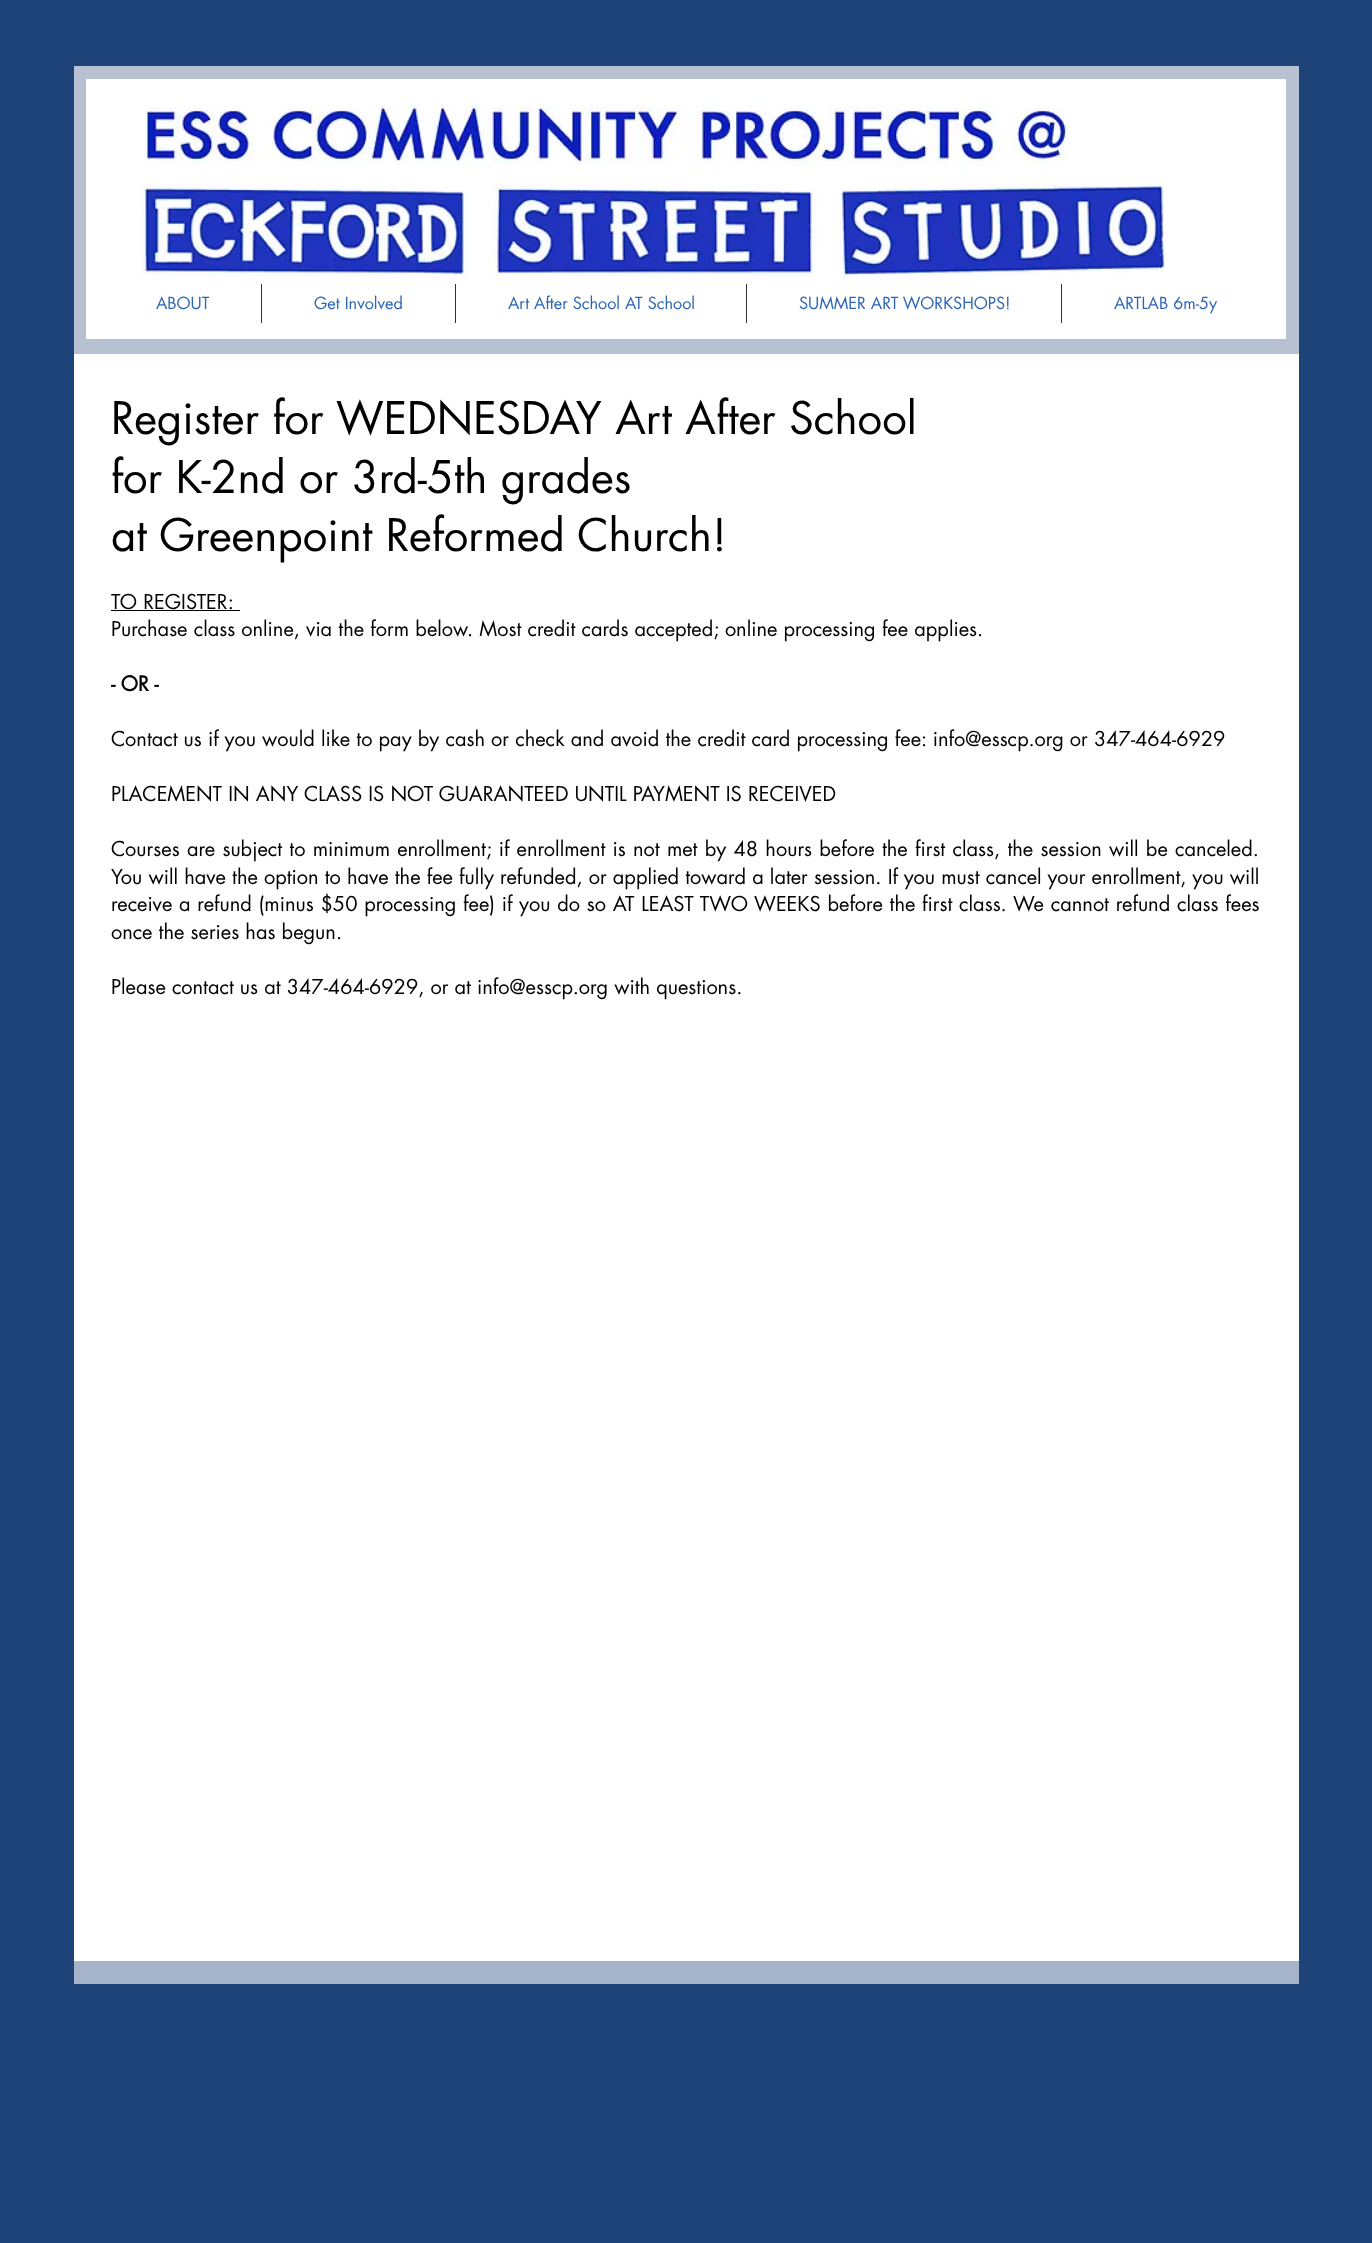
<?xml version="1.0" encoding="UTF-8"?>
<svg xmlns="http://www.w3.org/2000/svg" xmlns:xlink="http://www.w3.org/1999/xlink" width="1372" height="2243">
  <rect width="100%" height="100%" fill="#1d4379" />
  <rect x="74" y="66" width="1225" height="288" fill="#b6c2d2" />
  <rect x="86" y="79" width="1200" height="260" fill="#ffffff" />
  <image x="142" y="103" width="1023" height="173" xlink:href="image1.png" />
  <rect x="261" y="284" width="1" height="39" fill="#323232" />
  <rect x="455" y="284" width="1" height="39" fill="#323232" />
  <rect x="746" y="284" width="1" height="39" fill="#323232" />
  <rect x="1061" y="284" width="1" height="39" fill="#323232" />
  <rect x="74" y="354" width="1225" height="1607" fill="#ffffff" />
  <rect x="111" y="610" width="129" height="1" fill="#000000" />
  <rect x="74" y="1961" width="1225" height="23" fill="#a5b4c9" />
  <text x="156" y="309" style="font-family: futura; font-size: 16.25px; fill: #2b65b5">ABOUT</text>
  <text x="314" y="309" style="font-family: futura; font-size: 16.25px; fill: #2b65b5">Get Involved</text>
  <text x="508" y="309" style="font-family: futura; font-size: 16.25px; fill: #2b65b5">Art After School AT School</text>
  <text x="799" y="309" style="font-family: futura; font-size: 16.25px; fill: #2b65b5">SUMMER ART WORKSHOPS!</text>
  <text x="1114" y="309" style="font-family: futura; font-size: 16.25px; fill: #2b65b5">ARTLAB 6m-5y</text>
  <text x="111" y="434" style="font-family: futura; font-size: 43.75px; fill: #000000">Register for WEDNESDAY Art After School</text>
  <text x="111" y="493" style="font-family: futura; font-size: 43.75px; fill: #000000">for K-2nd or 3rd-5th grades</text>
  <text x="111" y="551" style="font-family: futura; font-size: 43.75px; fill: #000000">at Greenpoint Reformed Church!</text>
  <text x="111" y="609" style="font-family: futura; font-size: 20px; fill: #000000">TO REGISTER:</text>
  <text x="111" y="636" style="font-family: futura; font-size: 20px; fill: #000000">Purchase class online, via the form below. Most credit cards accepted; online processing fee applies.</text>
  <text x="111" y="691" style="font-family: futura; font-size: 20px; font-weight: bold; fill: #000000">- OR -</text>
  <text x="111" y="746" style="font-family: futura; font-size: 20px; fill: #000000">Contact us if you would like to pay by cash or check and avoid the credit card processing fee: info@esscp.org or 347-464-6929</text>
  <text x="111" y="801" style="font-family: futura; font-size: 20px; fill: #000000">PLACEMENT IN ANY CLASS IS NOT GUARANTEED UNTIL PAYMENT IS RECEIVED</text>
  <text x="111" y="856" word-spacing="1.1" style="font-family: futura; font-size: 20px; fill: #000000">Courses are subject to minimum enrollment; if enrollment is not met by 48 hours before the first class, the session will be canceled.</text>
  <text x="111" y="884" style="font-family: futura; font-size: 20px; fill: #000000">You will have the option to have the fee fully refunded, or applied toward a later session. If you must cancel your enrollment, you will</text>
  <text x="111" y="911" word-spacing="0.6" style="font-family: futura; font-size: 20px; fill: #000000">receive a refund (minus $50 processing fee) if you do so AT LEAST TWO WEEKS before the first class. We cannot refund class fees</text>
  <text x="111" y="939" style="font-family: futura; font-size: 20px; fill: #000000">once the series has begun.</text>
  <text x="111" y="994" style="font-family: futura; font-size: 20px; fill: #000000">Please contact us at 347-464-6929, or at info@esscp.org with questions.</text>
</svg>
